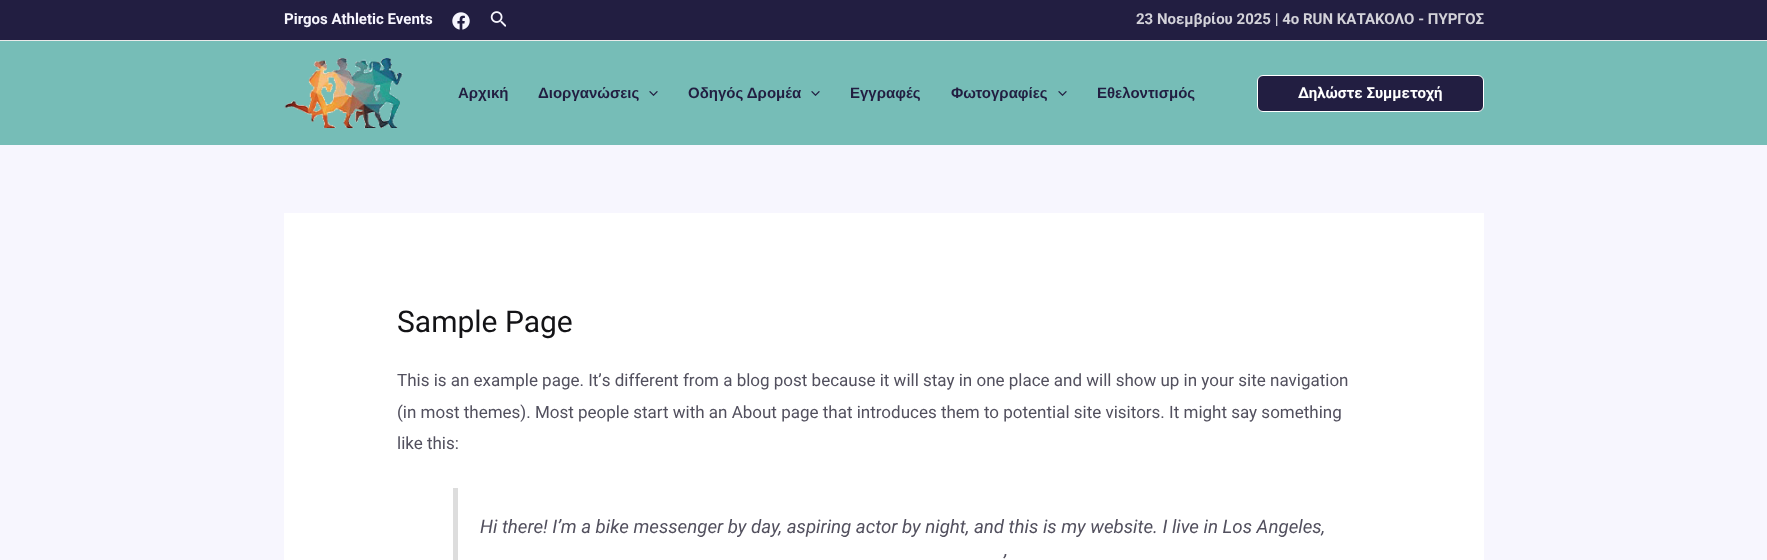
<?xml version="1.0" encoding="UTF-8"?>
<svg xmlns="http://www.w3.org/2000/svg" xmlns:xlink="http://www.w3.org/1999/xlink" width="1767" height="560">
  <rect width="100%" height="100%" fill="#f7f6fe" />
  <rect width="1767" height="40" fill="#221e41" />
  <rect y="40" width="1767" height="1" fill="#eaeaea" />
  <image x="452" y="12" width="18" height="18" xlink:href="image1.png" />
  <image x="490" y="11" width="16" height="16" xlink:href="image2.png" />
  <rect y="41" width="1767" height="104" fill="#76bdb7" />
  <image x="284" y="58" width="119" height="70" xlink:href="image3.png" />
  <image x="649" y="91" width="9" height="5" xlink:href="image4.png" />
  <image x="811" y="91" width="9" height="5" xlink:href="image4.png" />
  <image x="1058" y="91" width="9" height="5" xlink:href="image4.png" />
  <rect x="1257.5" y="75.5" width="226" height="36" rx="5.5" fill="#221e41" stroke="#ffffff" />
  <rect x="284" y="213" width="1200" height="347" fill="#ffffff" />
  <rect x="453" y="488" width="5" height="72" fill="#dddddd" />
  <text x="284" y="24" style="font-family: Roboto; font-size: 15px; font-weight: bold; fill: #f7f6fe">Pirgos Athletic Events</text>
  <text x="1136" y="24" style="font-family: Roboto; font-size: 15px; font-weight: bold; fill: #d3d2d9">23 Νοεμβρίου 2025 | 4ο RUN ΚΑΤΑΚΟΛΟ - ΠΥΡΓΟΣ</text>
  <text x="458" y="98" style="font-family: Liberation Sans; font-size: 15px; font-weight: bold; fill: #221e41">Αρχική</text>
  <text x="538" y="98" style="font-family: Liberation Sans; font-size: 15px; font-weight: bold; fill: #221e41">Διοργανώσεις</text>
  <text x="688" y="98" style="font-family: Liberation Sans; font-size: 15px; font-weight: bold; fill: #221e41">Οδηγός Δρομέα</text>
  <text x="850" y="98" style="font-family: Liberation Sans; font-size: 15px; font-weight: bold; fill: #221e41">Εγγραφές</text>
  <text x="951" y="98" style="font-family: Liberation Sans; font-size: 15px; font-weight: bold; fill: #221e41">Φωτογραφίες</text>
  <text x="1097" y="98" style="font-family: Liberation Sans; font-size: 15px; font-weight: bold; fill: #221e41">Εθελοντισμός</text>
  <text x="1298" y="98" style="font-family: Roboto; font-size: 15px; font-weight: bold; fill: #ffffff">Δηλώστε Συμμετοχή</text>
  <text x="397" y="332" style="font-family: Roboto; font-size: 30px; fill: #131316">Sample Page</text>
  <text x="397" y="386" style="font-family: Roboto; font-size: 17px; fill: #52505e">This is an example page. It’s different from a blog post because it will stay in one place and will show up in your site navigation</text>
  <text x="397" y="418" style="font-family: Roboto; font-size: 17px; fill: #52505e">(in most themes). Most people start with an About page that introduces them to potential site visitors. It might say something</text>
  <text x="397" y="449" style="font-family: Roboto; font-size: 17px; fill: #52505e">like this:</text>
  <text x="480" y="533" style="font-family: Roboto; font-size: 18.7px; font-style: italic; fill: #52505e">Hi there! I’m a bike messenger by day, aspiring actor by night, and this is my website. I live in Los Angeles,</text>
  <text x="1002" y="568" style="font-family: Roboto; font-size: 18.7px; font-style: italic; fill: #52505e">’</text>
</svg>
